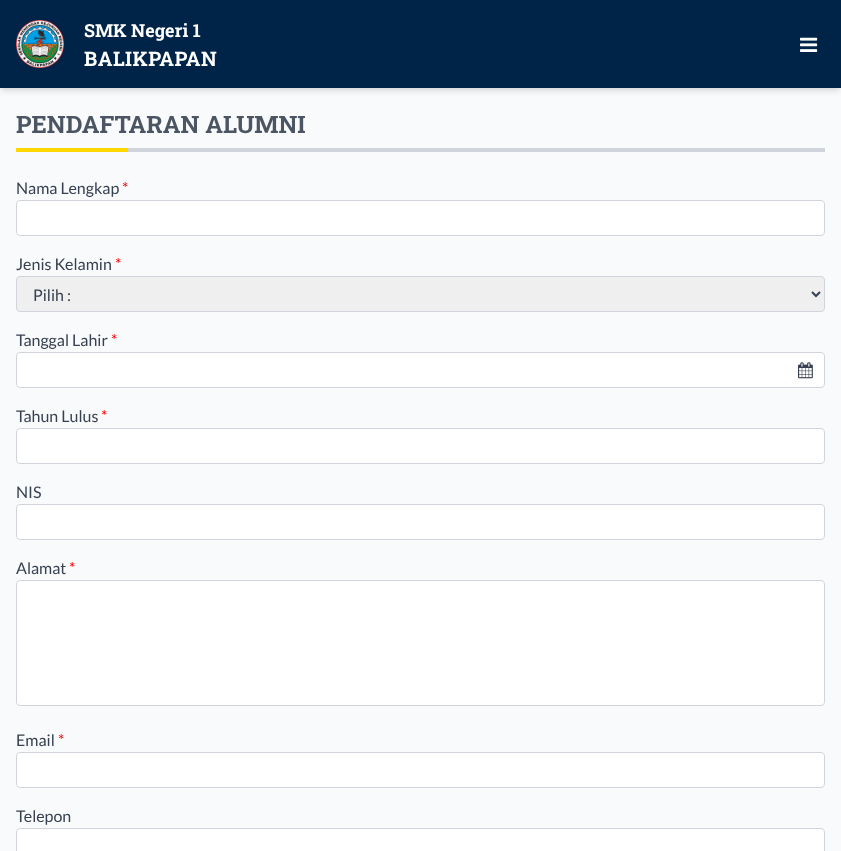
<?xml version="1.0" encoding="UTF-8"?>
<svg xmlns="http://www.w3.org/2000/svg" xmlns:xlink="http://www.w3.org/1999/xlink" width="841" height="851">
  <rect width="100%" height="100%" fill="#f9fafb" />
  <rect x="1" y="3" width="839" height="86" fill="#000000" fill-opacity="0.06" filter="blur(2px)" />
  <rect x="1" y="5" width="839" height="86" fill="#000000" fill-opacity="0.1" filter="blur(3px)" />
  <rect width="841" height="88" fill="#002447" />
  <image x="16" y="20" width="48" height="48" xlink:href="image1.png" />
  <image x="800" y="37" width="18" height="15" xlink:href="image2.png" />
  <rect x="128" y="148" width="697" height="4" fill="#d1d5db" />
  <rect x="16" y="148" width="112" height="4" fill="#fed700" />
  <rect x="16.5" y="200.5" width="808" height="35" rx="3.5" fill="#ffffff" stroke="#d1d5db" />
  <rect x="16.5" y="276.5" width="808" height="35" rx="3.5" fill="#efefef" stroke="#d1d5db" />
  <path d="M 812 292 l 4 4 l 4 -4" fill="none" stroke="#374151" stroke-width="2" />
  <rect x="16.5" y="352.5" width="808" height="35" rx="3.5" fill="#ffffff" stroke="#d1d5db" />
  <image x="798" y="362" width="15" height="17" xlink:href="image3.png" />
  <rect x="16.5" y="428.5" width="808" height="35" rx="3.5" fill="#ffffff" stroke="#d1d5db" />
  <rect x="16.5" y="504.5" width="808" height="35" rx="3.5" fill="#ffffff" stroke="#d1d5db" />
  <rect x="16.5" y="580.5" width="808" height="125" rx="3.5" fill="#ffffff" stroke="#d1d5db" />
  <rect x="16.5" y="752.5" width="808" height="35" rx="3.5" fill="#ffffff" stroke="#d1d5db" />
  <rect x="16.5" y="828.5" width="808" height="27" rx="3.5" fill="#ffffff" stroke="#d1d5db" />
  <text x="84" y="37" style="font-family: Roboto Slab; font-size: 18px; font-weight: bold; fill: #ffffff">SMK Negeri 1</text>
  <text x="84" y="66" style="font-family: Roboto Slab; font-size: 20px; font-weight: bold; letter-spacing: 0.5px; fill: #ffffff">BALIKPAPAN</text>
  <text x="16" y="133" style="font-family: Roboto Slab; font-size: 24px; font-weight: bold; fill: #4b5563">PENDAFTARAN ALUMNI</text>
  <text x="16" y="194" style="font-family: Lato; font-size: 16px; fill: #374151">Nama Lengkap</text>
  <text x="122" y="194" style="font-family: Lato; font-size: 16px; fill: #ff0000">*</text>
  <text x="16" y="270" style="font-family: Lato; font-size: 16px; fill: #374151">Jenis Kelamin</text>
  <text x="115" y="270" style="font-family: Lato; font-size: 16px; fill: #ff0000">*</text>
  <text x="33" y="301" style="font-family: Lato; font-size: 16px; fill: #374151">Pilih :</text>
  <text x="16" y="346" style="font-family: Lato; font-size: 16px; fill: #374151">Tanggal Lahir</text>
  <text x="111" y="346" style="font-family: Lato; font-size: 16px; fill: #ff0000">*</text>
  <text x="16" y="422" style="font-family: Lato; font-size: 16px; fill: #374151">Tahun Lulus</text>
  <text x="101" y="422" style="font-family: Lato; font-size: 16px; fill: #ff0000">*</text>
  <text x="16" y="498" style="font-family: Lato; font-size: 16px; fill: #374151">NIS</text>
  <text x="16" y="574" style="font-family: Lato; font-size: 16px; fill: #374151">Alamat</text>
  <text x="69" y="574" style="font-family: Lato; font-size: 16px; fill: #ff0000">*</text>
  <text x="16" y="746" style="font-family: Lato; font-size: 16px; fill: #374151">Email</text>
  <text x="58" y="746" style="font-family: Lato; font-size: 16px; fill: #ff0000">*</text>
  <text x="16" y="822" style="font-family: Lato; font-size: 16px; fill: #374151">Telepon</text>
</svg>
